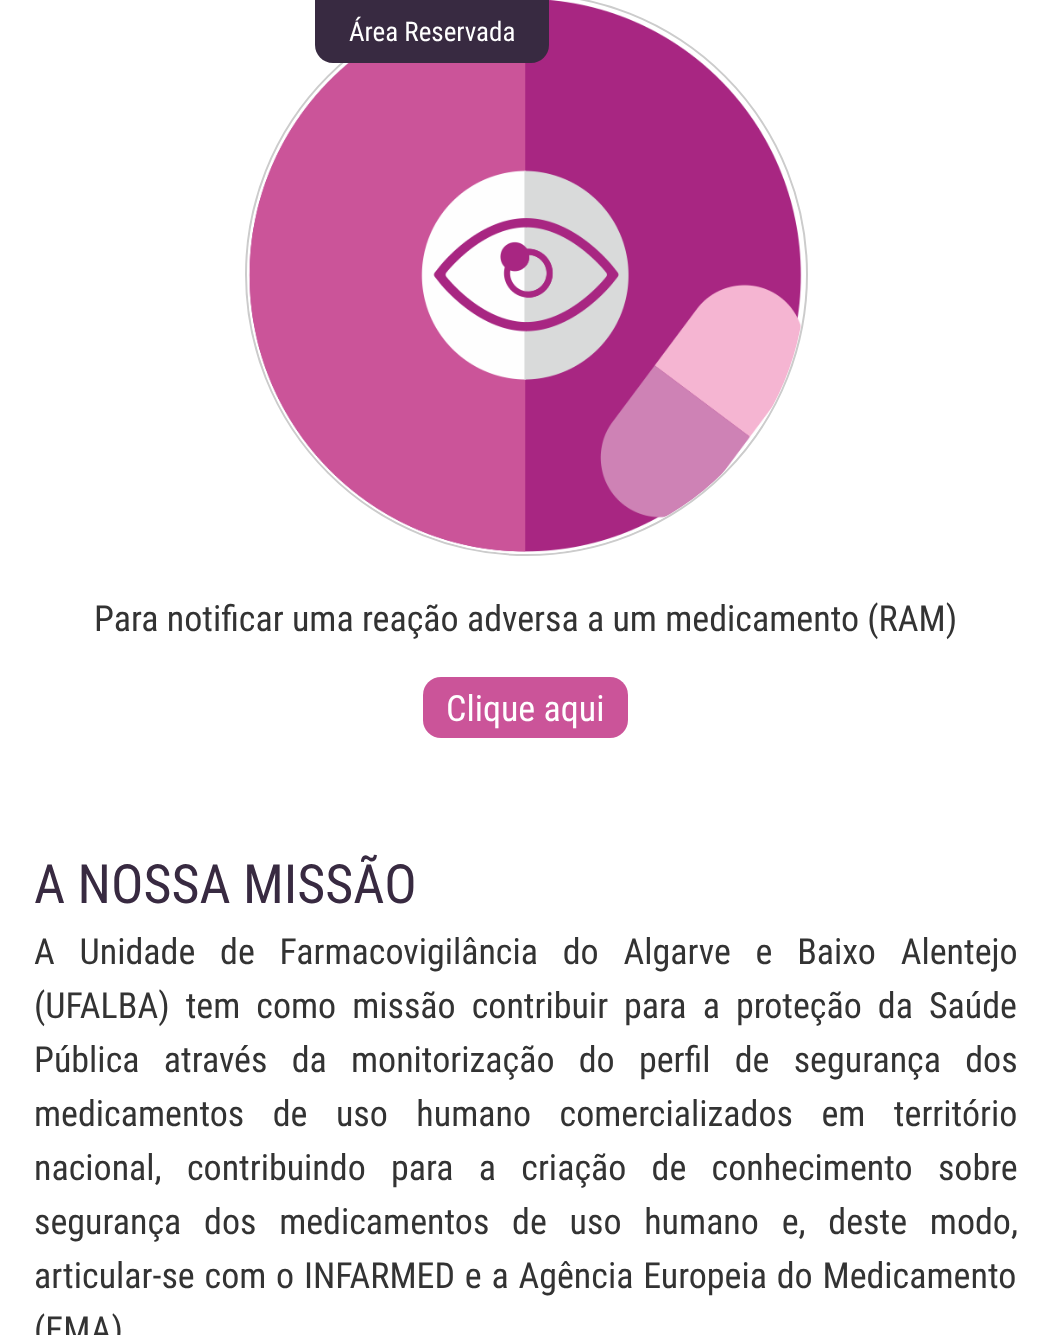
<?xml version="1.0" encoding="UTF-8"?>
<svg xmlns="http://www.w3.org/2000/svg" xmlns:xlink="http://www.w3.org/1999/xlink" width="1049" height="1335">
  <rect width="100%" height="100%" fill="#ffffff" />
  <circle cx="526.5" cy="274.5" r="280.5" fill="none" stroke="#cccccc" stroke-width="2" />
  <image x="248" y="0" width="554" height="554" xlink:href="image1.png" />
  <path d="M 315 0 h 234 v 45 c 0 10 -8 18 -18 18 h -198 c -10 0 -18 -8 -18 -18 z" fill="#382a41" />
  <rect x="423" y="677" width="205" height="61" rx="18" fill="#cb5499" />
  <text x="349" y="41" style="font-family: Roboto Condensed; font-size: 27px; fill: #ffffff">Área Reservada</text>
  <text x="94" y="631" style="font-family: Roboto Condensed; font-size: 36px; fill: #333333">Para notificar uma reação adversa a um medicamento (RAM)</text>
  <text x="446" y="721" style="font-family: Roboto Condensed; font-size: 36px; fill: #ffffff">Clique aqui</text>
  <text x="34" y="903" style="font-family: Roboto Condensed; font-size: 54px; fill: #382a41">A NOSSA MISSÃO</text>
  <text x="34" y="964" word-spacing="16.5" style="font-family: Roboto Condensed; font-size: 36px; fill: #333333">A Unidade de Farmacovigilância do Algarve e Baixo Alentejo</text>
  <text x="34" y="1018" word-spacing="7.75" style="font-family: Roboto Condensed; font-size: 36px; fill: #333333">(UFALBA) tem como missão contribuir para a proteção da Saúde</text>
  <text x="34" y="1072" word-spacing="16" style="font-family: Roboto Condensed; font-size: 36px; fill: #333333">Pública através da monitorização do perfil de segurança dos</text>
  <text x="34" y="1126" word-spacing="20.25" style="font-family: Roboto Condensed; font-size: 36px; fill: #333333">medicamentos de uso humano comercializados em território</text>
  <text x="34" y="1180" word-spacing="17" style="font-family: Roboto Condensed; font-size: 36px; fill: #333333">nacional, contribuindo para a criação de conhecimento sobre</text>
  <text x="34" y="1234" word-spacing="14.5" style="font-family: Roboto Condensed; font-size: 36px; fill: #333333">segurança dos medicamentos de uso humano e, deste modo,</text>
  <text x="34" y="1288" word-spacing="1.5" style="font-family: Roboto Condensed; font-size: 36px; fill: #333333">articular-se com o INFARMED e a Agência Europeia do Medicamento</text>
  <text x="34" y="1342" style="font-family: Roboto Condensed; font-size: 36px; fill: #333333">(EMA)</text>
</svg>
